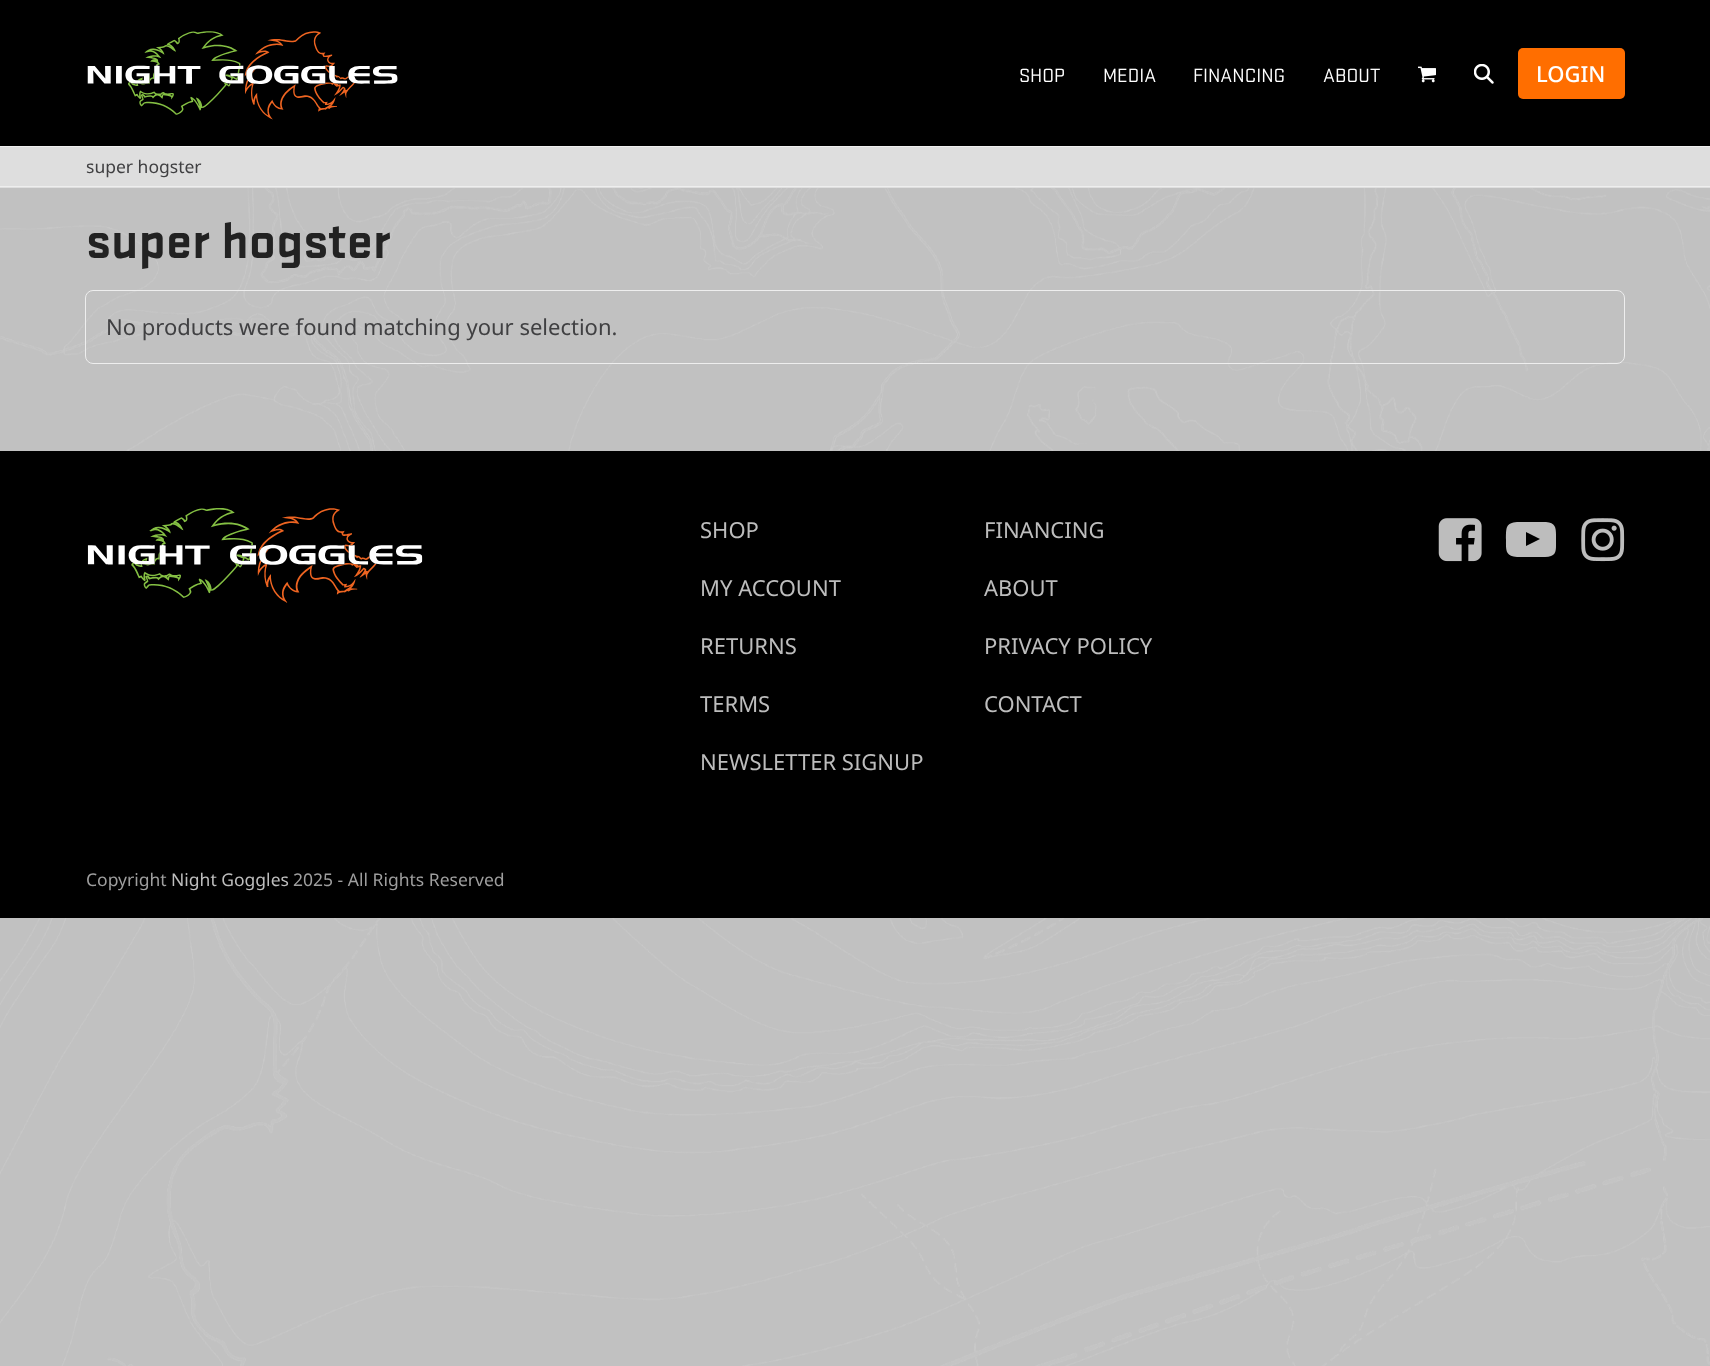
<?xml version="1.0" encoding="UTF-8"?>
<svg xmlns="http://www.w3.org/2000/svg" xmlns:xlink="http://www.w3.org/1999/xlink" width="1710" height="1366">
  <rect width="100%" height="100%" fill="#c1c1c1" />
  <image x="0" y="188" width="1710" height="1178" xlink:href="image1.png" />
  <rect width="1710" height="146" fill="#000000" />
  <image x="87" y="31" width="311" height="89" xlink:href="image2.png" />
  <image x="1418" y="66" width="18" height="17" xlink:href="image3.png" />
  <image x="1474" y="64" width="20" height="20" xlink:href="image4.png" />
  <rect x="1518" y="48" width="107" height="51" rx="5" fill="#ff6e00" />
  <rect y="147" width="1710" height="41" fill="#dedede" />
  <rect y="146" width="1710" height="1" fill="#eeeeee" />
  <rect y="186" width="1710" height="1" fill="#eeeeee" />
  <rect x="85.5" y="290.5" width="1539" height="73" rx="7.5" fill="none" stroke="#eeeeee" />
  <rect y="451" width="1710" height="467" fill="#000000" />
  <image x="87" y="508" width="336" height="95" xlink:href="image5.png" />
  <image x="1438" y="518" width="44" height="44" xlink:href="image6.png" />
  <path d="M 1526 546 l 14 -7 l -14 -7 z m 5 -24 h 15 c 11 1 10 7 10 18 c 0 12 1 16 -11 17 h -28 c -12 -1 -11 -7 -11 -17 c 0 -13 0 -17 11 -18 z" fill="#bdbdbd" />
  <image x="1581" y="518" width="44" height="44" xlink:href="image7.png" />
  <text x="1019" y="82" style="font-family: 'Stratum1'; font-size: 20px; fill: #ffffff">SHOP</text>
  <text x="1103" y="82" style="font-family: 'Stratum1'; font-size: 20px; fill: #ffffff">MEDIA</text>
  <text x="1193" y="82" style="font-family: 'Stratum1'; font-size: 20px; fill: #ffffff">FINANCING</text>
  <text x="1323" y="82" style="font-family: 'Stratum1'; font-size: 20px; fill: #ffffff">ABOUT</text>
  <text x="1536" y="82" style="font-family: Noto Sans; font-size: 22px; font-weight: 500; fill: #ffffff">LOGIN</text>
  <text x="86" y="173" style="font-family: Noto Sans; font-size: 17.5px; fill: #404042">super hogster</text>
  <text x="86" y="258" style="font-family: 'Stratum1'; font-size: 52.5px; font-weight: bold; fill: #222222">super hogster</text>
  <text x="106" y="335" style="font-family: Noto Sans; font-size: 22px; fill: #404042">No products were found matching your selection.</text>
  <text x="700" y="538" style="font-family: Noto Sans; font-size: 22px; fill: #bdbdbd">SHOP</text>
  <text x="700" y="596" style="font-family: Noto Sans; font-size: 22px; fill: #bdbdbd">MY ACCOUNT</text>
  <text x="700" y="654" style="font-family: Noto Sans; font-size: 22px; fill: #bdbdbd">RETURNS</text>
  <text x="700" y="712" style="font-family: Noto Sans; font-size: 22px; fill: #bdbdbd">TERMS</text>
  <text x="700" y="770" style="font-family: Noto Sans; font-size: 22px; fill: #bdbdbd">NEWSLETTER SIGNUP</text>
  <text x="984" y="538" style="font-family: Noto Sans; font-size: 22px; fill: #bdbdbd">FINANCING</text>
  <text x="984" y="596" style="font-family: Noto Sans; font-size: 22px; fill: #bdbdbd">ABOUT</text>
  <text x="984" y="654" style="font-family: Noto Sans; font-size: 22px; fill: #bdbdbd">PRIVACY POLICY</text>
  <text x="984" y="712" style="font-family: Noto Sans; font-size: 22px; fill: #bdbdbd">CONTACT</text>
  <text x="86" y="886" style="font-family: Noto Sans; font-size: 17.5px; fill: #9e9e9e">Copyright</text>
  <text x="171" y="886" style="font-family: Noto Sans; font-size: 17.5px; fill: #bdbdbd">Night Goggles</text>
  <text x="293" y="886" style="font-family: Noto Sans; font-size: 17.5px; fill: #9e9e9e">2025 - All Rights Reserved</text>
</svg>
